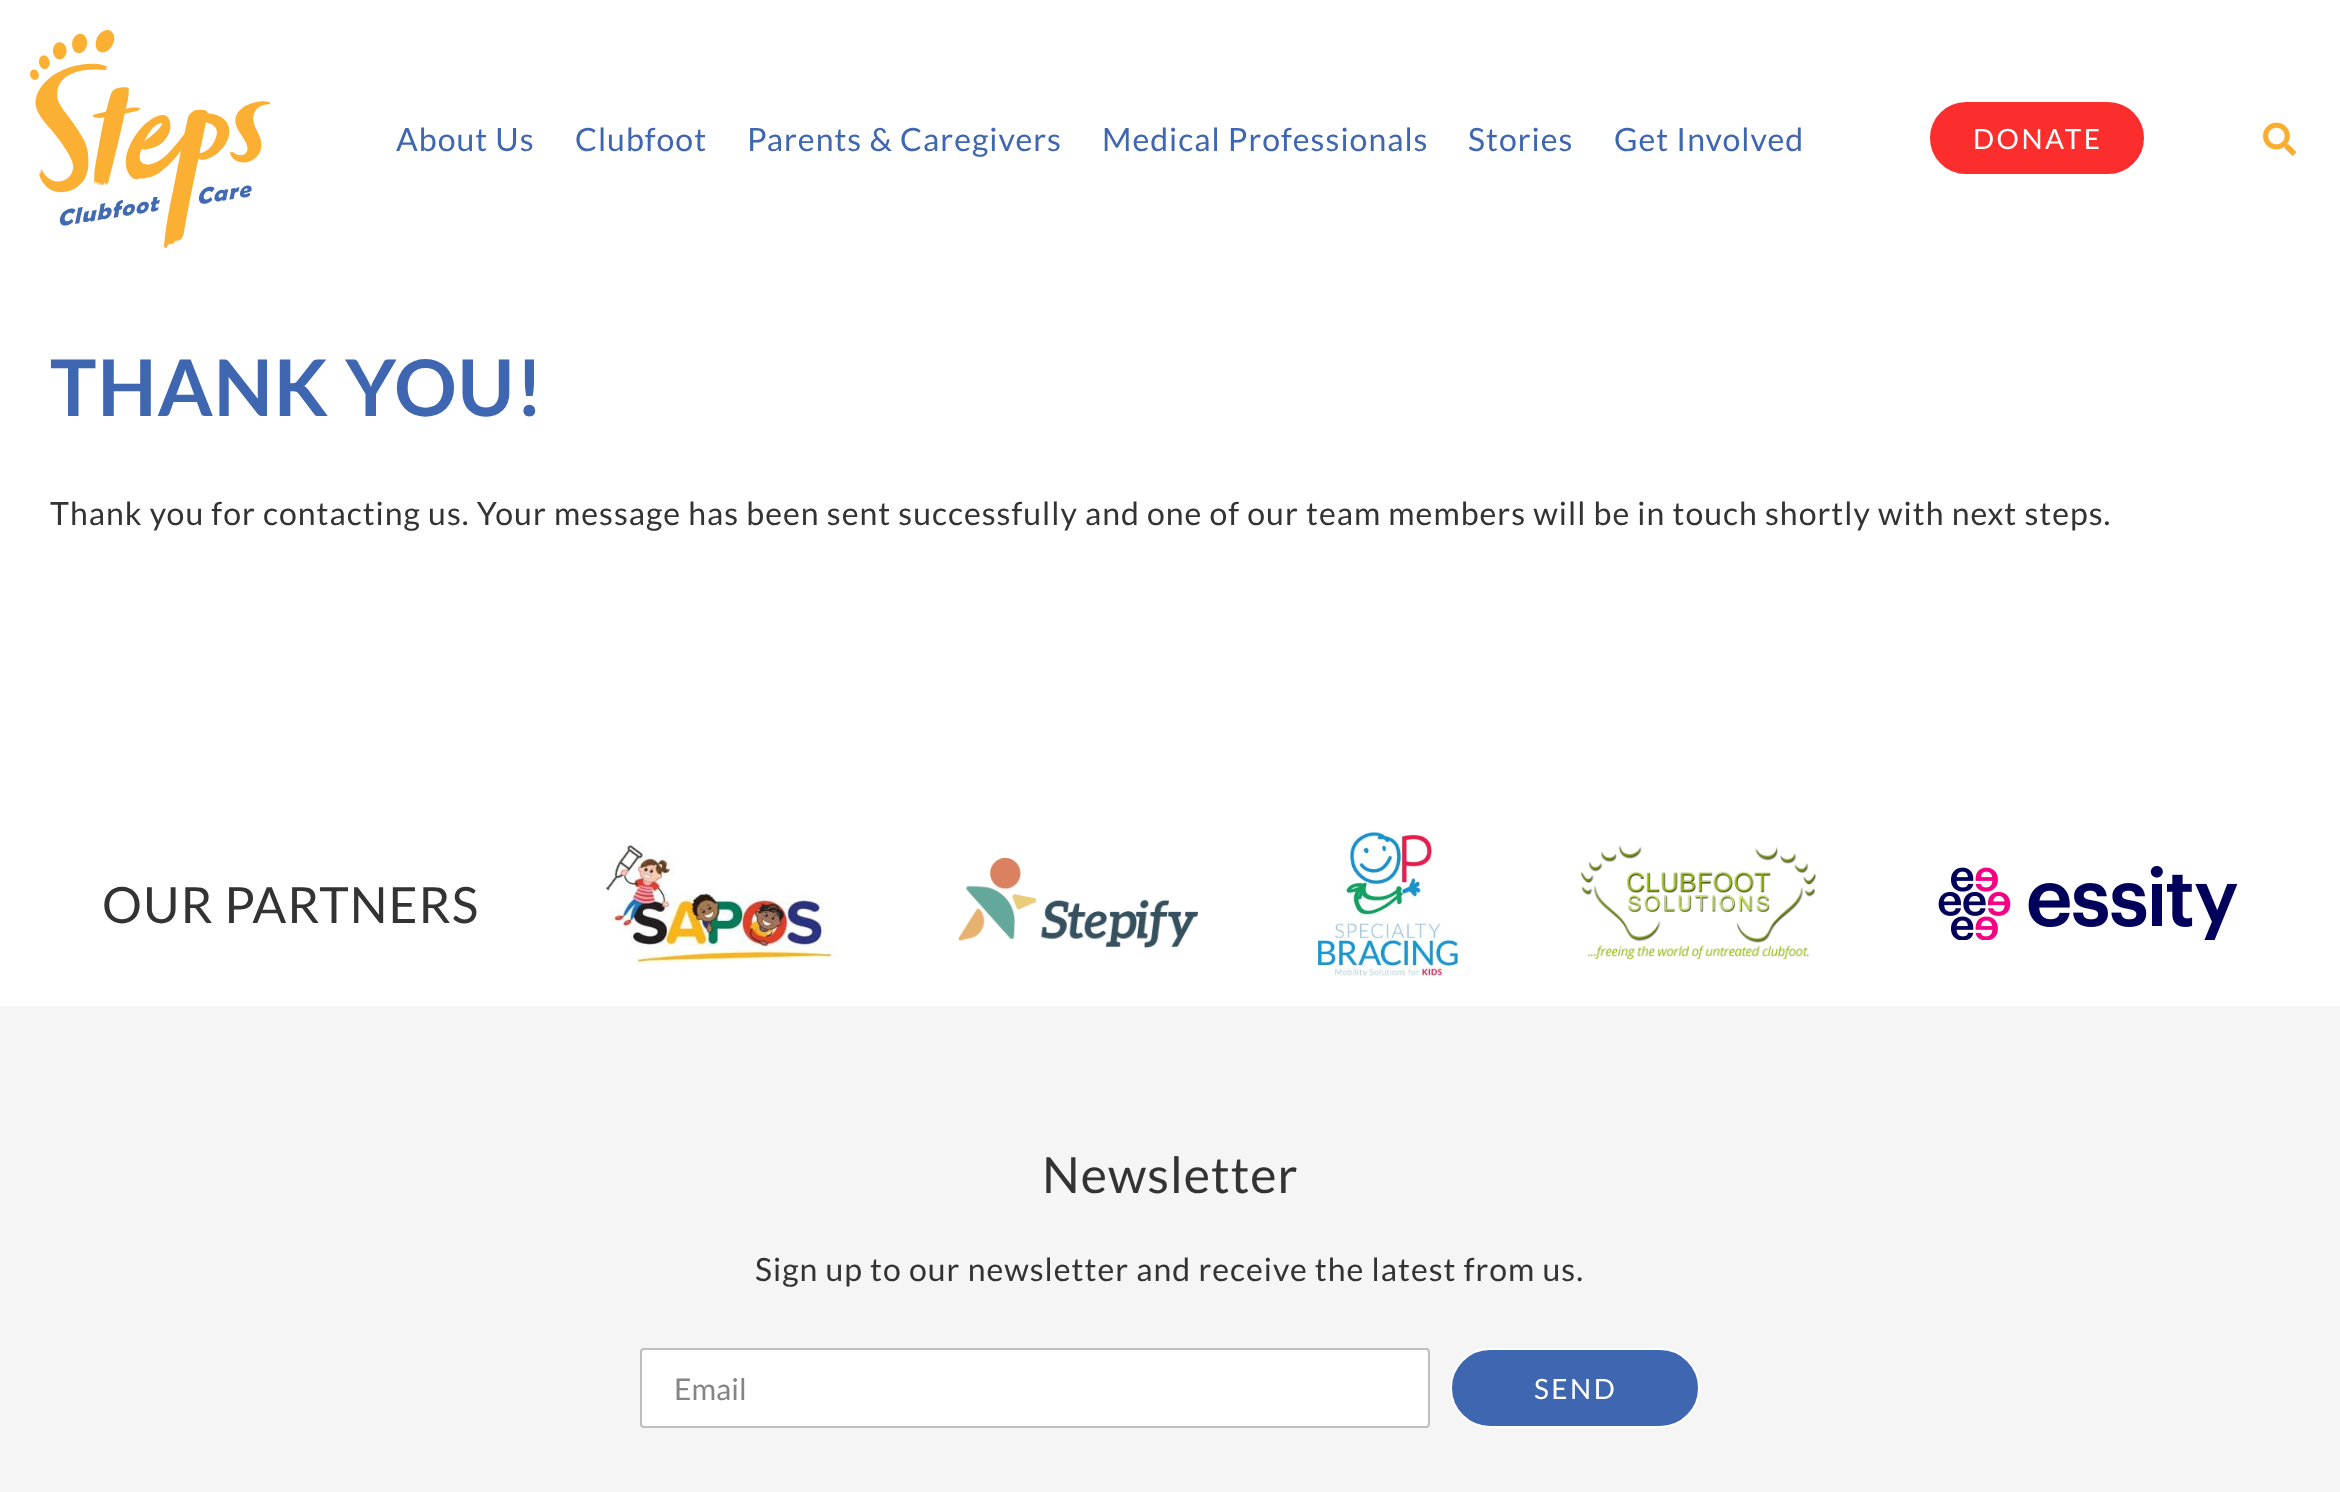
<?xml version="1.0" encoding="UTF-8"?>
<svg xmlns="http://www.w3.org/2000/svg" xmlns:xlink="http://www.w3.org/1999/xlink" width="2340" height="1492">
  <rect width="100%" height="100%" fill="#ffffff" />
  <image x="30" y="30" width="240" height="218" xlink:href="image1.png" />
  <rect x="1931" y="103" width="212" height="70" rx="35" fill="#fb2d2d" stroke="#fb2d2d" stroke-width="2" />
  <image x="2263" y="122" width="33" height="34" xlink:href="image2.png" />
  <image x="605" y="844" width="233" height="120" xlink:href="image3.png" />
  <image x="958" y="858" width="240" height="90" xlink:href="image4.png" />
  <image x="1318" y="832" width="140" height="144" xlink:href="image5.png" />
  <image x="1581" y="845" width="235" height="115" xlink:href="image6.png" />
  <image x="1938" y="866" width="300" height="74" xlink:href="image7.png" />
  <rect y="1006" width="2340" height="486" fill="#f5f5f5" />
  <rect x="640" y="1348" width="790" height="80" rx="4" fill="#ffffff" />
  <rect x="641" y="1349" width="788" height="78" rx="3" fill="none" stroke="#7a7a7a" stroke-opacity="0.49" stroke-width="2" />
  <rect x="1451" y="1349" width="248" height="78" rx="39" fill="#3f66b0" stroke="#ffffff" stroke-width="2" />
  <text x="396" y="151" style="font-family: Lato; font-size: 32px; letter-spacing: 1px; fill: #3f66b0">About Us</text>
  <text x="575" y="151" style="font-family: Lato; font-size: 32px; letter-spacing: 1px; fill: #3f66b0">Clubfoot</text>
  <text x="747" y="151" style="font-family: Lato; font-size: 32px; letter-spacing: 1px; fill: #3f66b0">Parents &amp; Caregivers</text>
  <text x="1102" y="151" style="font-family: Lato; font-size: 32px; letter-spacing: 1px; fill: #3f66b0">Medical Professionals</text>
  <text x="1468" y="151" style="font-family: Lato; font-size: 32px; letter-spacing: 1px; fill: #3f66b0">Stories</text>
  <text x="1614" y="151" style="font-family: Lato; font-size: 32px; letter-spacing: 1px; fill: #3f66b0">Get Involved</text>
  <text x="1973" y="149" style="font-family: Lato; font-size: 28px; letter-spacing: 2.5px; fill: #ffffff">DONATE</text>
  <text x="50" y="416" style="font-family: Lato; font-size: 78px; font-weight: bold; letter-spacing: 1px; fill: #3f66b0">THANK YOU!</text>
  <text x="50" y="525" style="font-family: Lato; font-size: 32px; letter-spacing: 1px; fill: #333333">Thank you for contacting us. Your message has been sent successfully and one of our team members will be in touch shortly with next steps.</text>
  <text x="102" y="923" style="font-family: Lato; font-size: 50px; letter-spacing: 1px; fill: #333333">OUR PARTNERS</text>
  <text x="1042" y="1193" style="font-family: Lato; font-size: 50px; letter-spacing: 1px; fill: #333333">Newsletter</text>
  <text x="755" y="1281" style="font-family: Lato; font-size: 32px; letter-spacing: 1px; fill: #333333">Sign up to our newsletter and receive the latest from us.</text>
  <text x="674" y="1400" style="font-family: Lato; font-size: 30px; fill: #858585">Email</text>
  <text x="1534" y="1399" style="font-family: Lato; font-size: 28px; letter-spacing: 2.5px; fill: #ffffff">SEND</text>
</svg>
